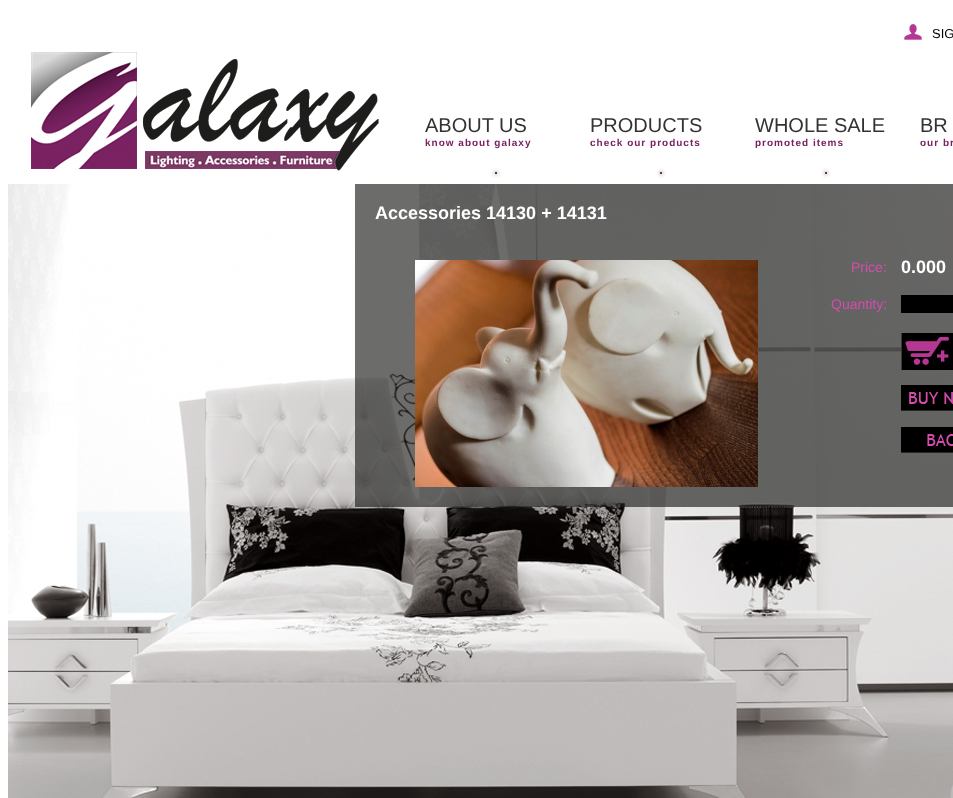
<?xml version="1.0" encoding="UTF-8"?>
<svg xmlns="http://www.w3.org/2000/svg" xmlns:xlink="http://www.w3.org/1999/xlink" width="953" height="798">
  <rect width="100%" height="100%" fill="#ffffff" />
  <image x="31" y="52" width="348" height="119" xlink:href="image1.png" />
  <image x="904" y="24" width="18" height="16" xlink:href="image2.png" />
  <rect x="495" y="172" width="2" height="2" fill="#000000" filter="blur(2px)" />
  <rect x="495" y="172" width="2" height="2" fill="#7b2262" />
  <rect x="660" y="172" width="2" height="2" fill="#000000" filter="blur(2px)" />
  <rect x="660" y="172" width="2" height="2" fill="#7b2262" />
  <rect x="825" y="172" width="2" height="2" fill="#000000" filter="blur(2px)" />
  <rect x="825" y="172" width="2" height="2" fill="#7b2262" />
  <image x="8" y="184" width="945" height="614" xlink:href="image3.png" />
  <rect x="355" y="184" width="598" height="323" fill="#1d1d1c" fill-opacity="0.65" />
  <image x="415" y="260" width="343" height="227" xlink:href="image4.png" />
  <rect x="901" y="295" width="52" height="18" fill="#000000" />
  <image x="901" y="333" width="52" height="37" xlink:href="image5.png" />
  <image x="901" y="385" width="52" height="26" xlink:href="image6.png" />
  <image x="901" y="427" width="52" height="26" xlink:href="image7.png" />
  <text x="932" y="38" style="font-family: Liberation Sans; font-size: 13px; fill: #000000">SIG</text>
  <text x="425" y="132" style="font-family: Liberation Sans; font-size: 20px; fill: #333333">ABOUT US</text>
  <text x="425" y="146" style="font-family: Liberation Sans; font-size: 10px; font-weight: bold; letter-spacing: 1px; fill: #792262">know about galaxy</text>
  <text x="590" y="132" style="font-family: Liberation Sans; font-size: 20px; fill: #333333">PRODUCTS</text>
  <text x="590" y="146" style="font-family: Liberation Sans; font-size: 10px; font-weight: bold; letter-spacing: 1px; fill: #792262">check our products</text>
  <text x="755" y="132" style="font-family: Liberation Sans; font-size: 20px; fill: #333333">WHOLE SALE</text>
  <text x="755" y="146" style="font-family: Liberation Sans; font-size: 10px; font-weight: bold; letter-spacing: 1px; fill: #792262">promoted items</text>
  <text x="920" y="132" style="font-family: Liberation Sans; font-size: 20px; fill: #333333">BR</text>
  <text x="920" y="146" style="font-family: Liberation Sans; font-size: 10px; font-weight: bold; letter-spacing: 1px; fill: #792262">our br</text>
  <text x="375" y="219" style="font-family: Liberation Sans; font-size: 18px; font-weight: bold; fill: #ffffff">Accessories 14130 + 14131</text>
  <text x="851" y="272" style="font-family: Liberation Sans; font-size: 14px; fill: #d64cae">Price:</text>
  <text x="901" y="273" style="font-family: Liberation Sans; font-size: 18px; font-weight: bold; fill: #ffffff">0.000</text>
  <text x="831" y="309" style="font-family: Liberation Sans; font-size: 14px; fill: #d64cae">Quantity:</text>
</svg>
